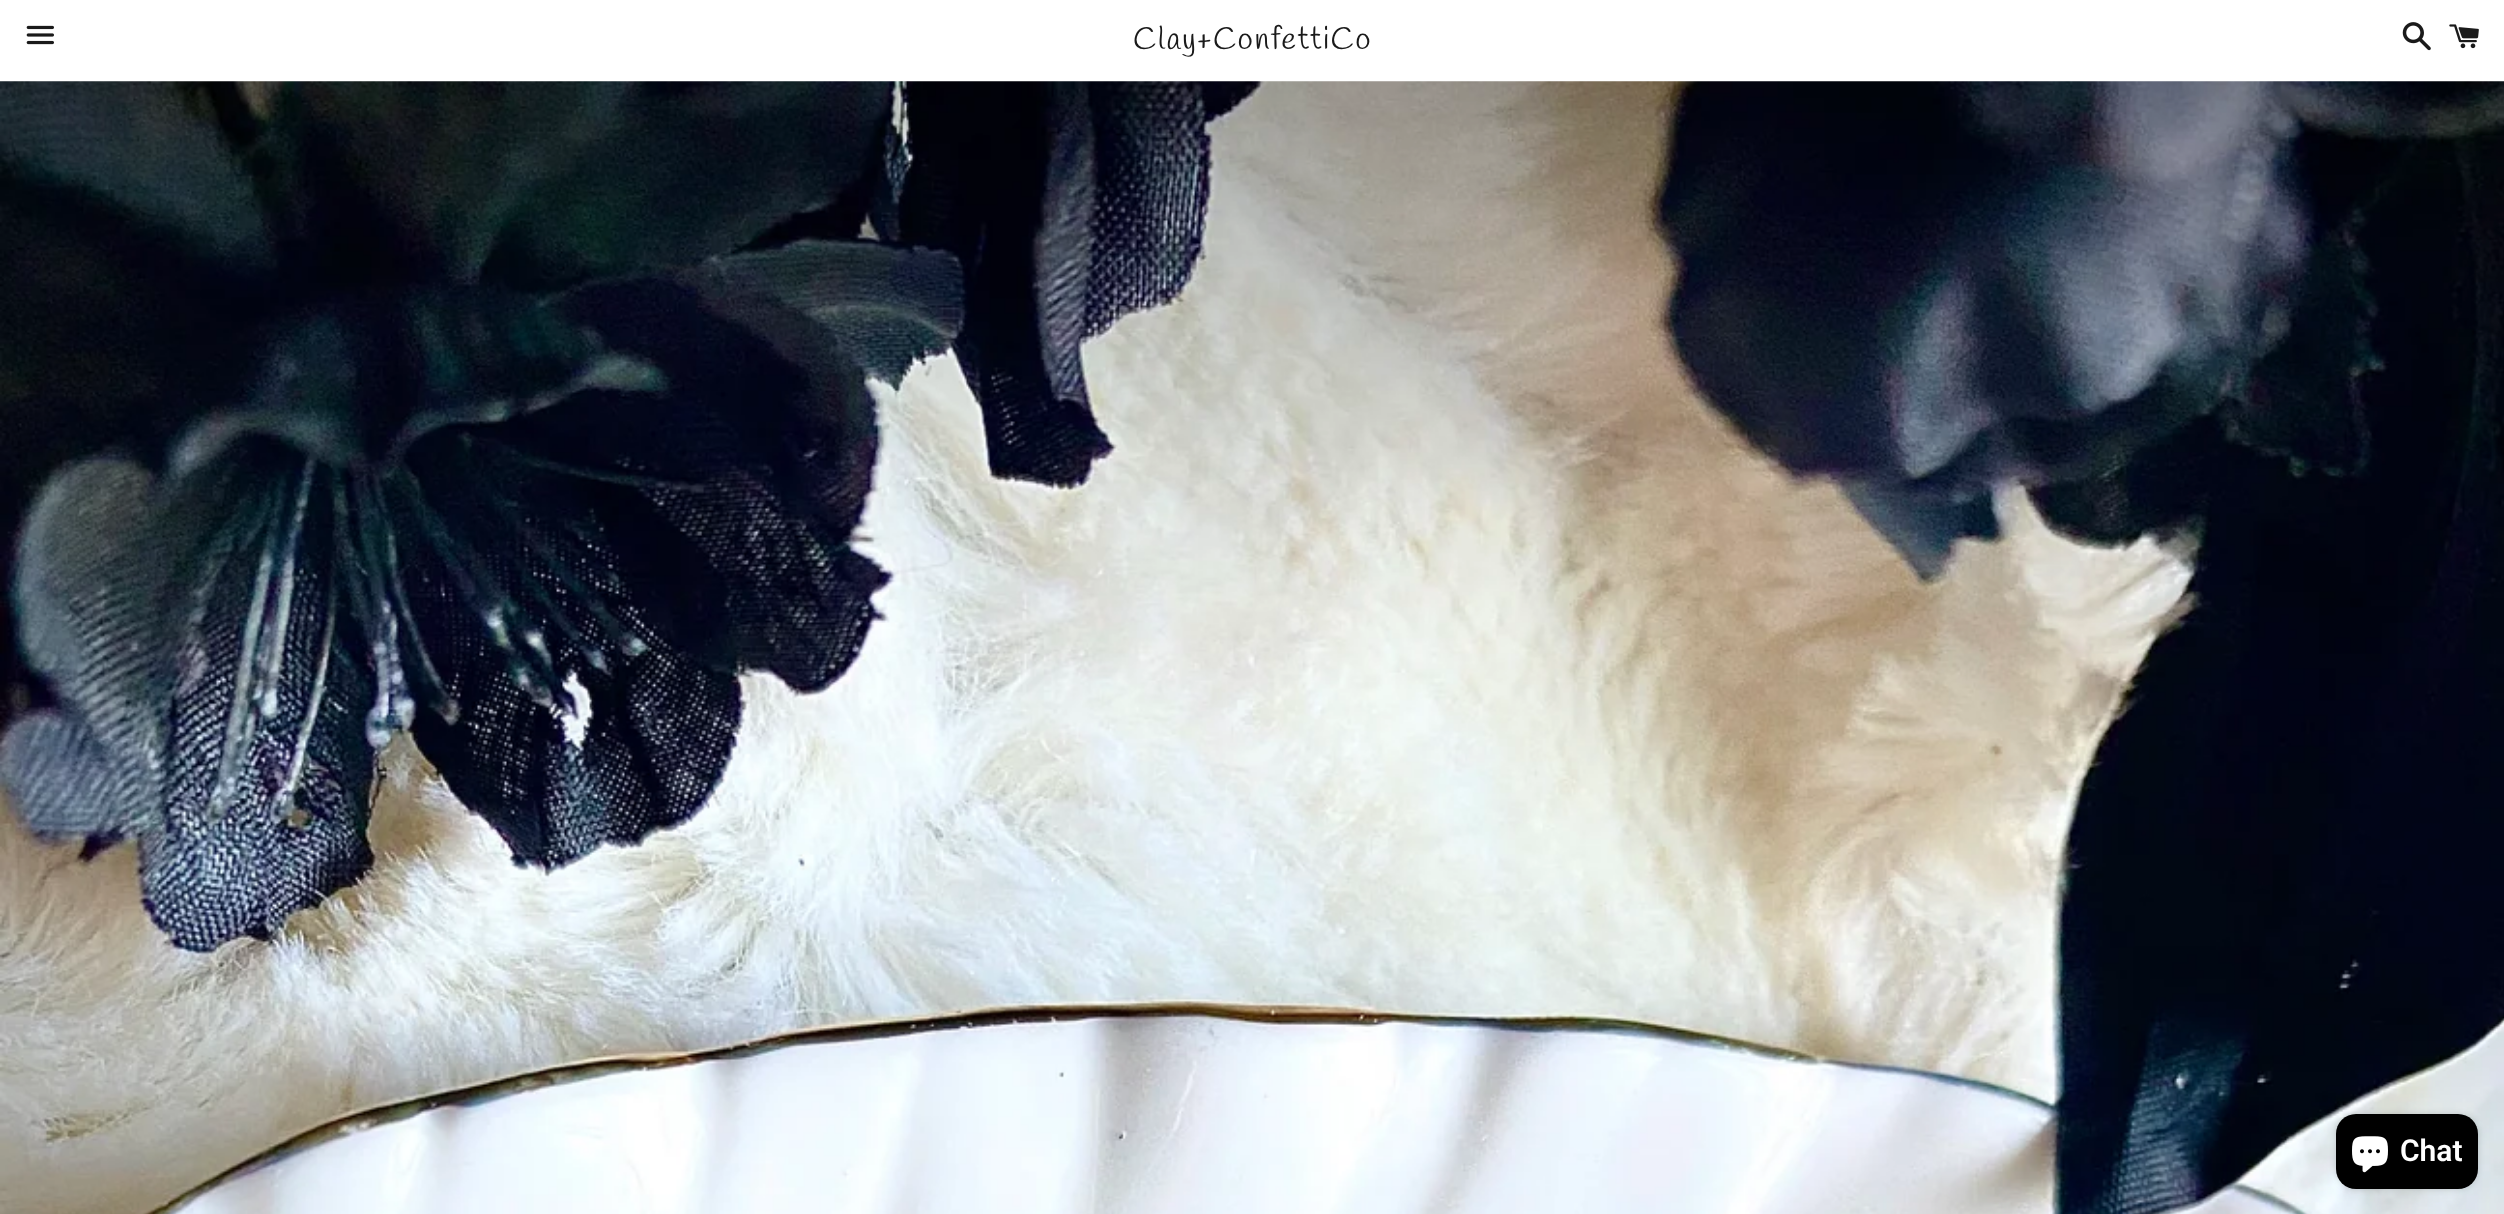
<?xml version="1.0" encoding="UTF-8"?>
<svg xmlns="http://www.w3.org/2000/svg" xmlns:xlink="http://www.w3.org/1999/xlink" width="2504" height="1214">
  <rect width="100%" height="100%" fill="#ffffff" />
  <image x="26" y="25" width="28" height="20" xlink:href="image1.png" />
  <image x="2402" y="22" width="29" height="29" xlink:href="image2.png" />
  <image x="2449" y="24" width="30" height="25" xlink:href="image3.png" />
  <image x="0" y="81" width="2504" height="1133" xlink:href="image4.png" />
  <rect x="2336" y="1114" width="142" height="75" rx="20" fill="#000000" fill-opacity="0.15" filter="blur(3px)" />
  <rect x="2336" y="1114" width="142" height="75" rx="20" fill="#000000" />
  <image x="2352" y="1136" width="36" height="37" xlink:href="image5.png" />
  <text x="1133" y="49" style="font-family: Handlee; font-size: 31.25px; letter-spacing: 1.5px; fill: #1a1a1a">Clay+ConfettiCo</text>
  <text x="2400" y="1161" style="font-family: Roboto; font-size: 30px; font-weight: 600; fill: #ffffff">Chat</text>
</svg>
